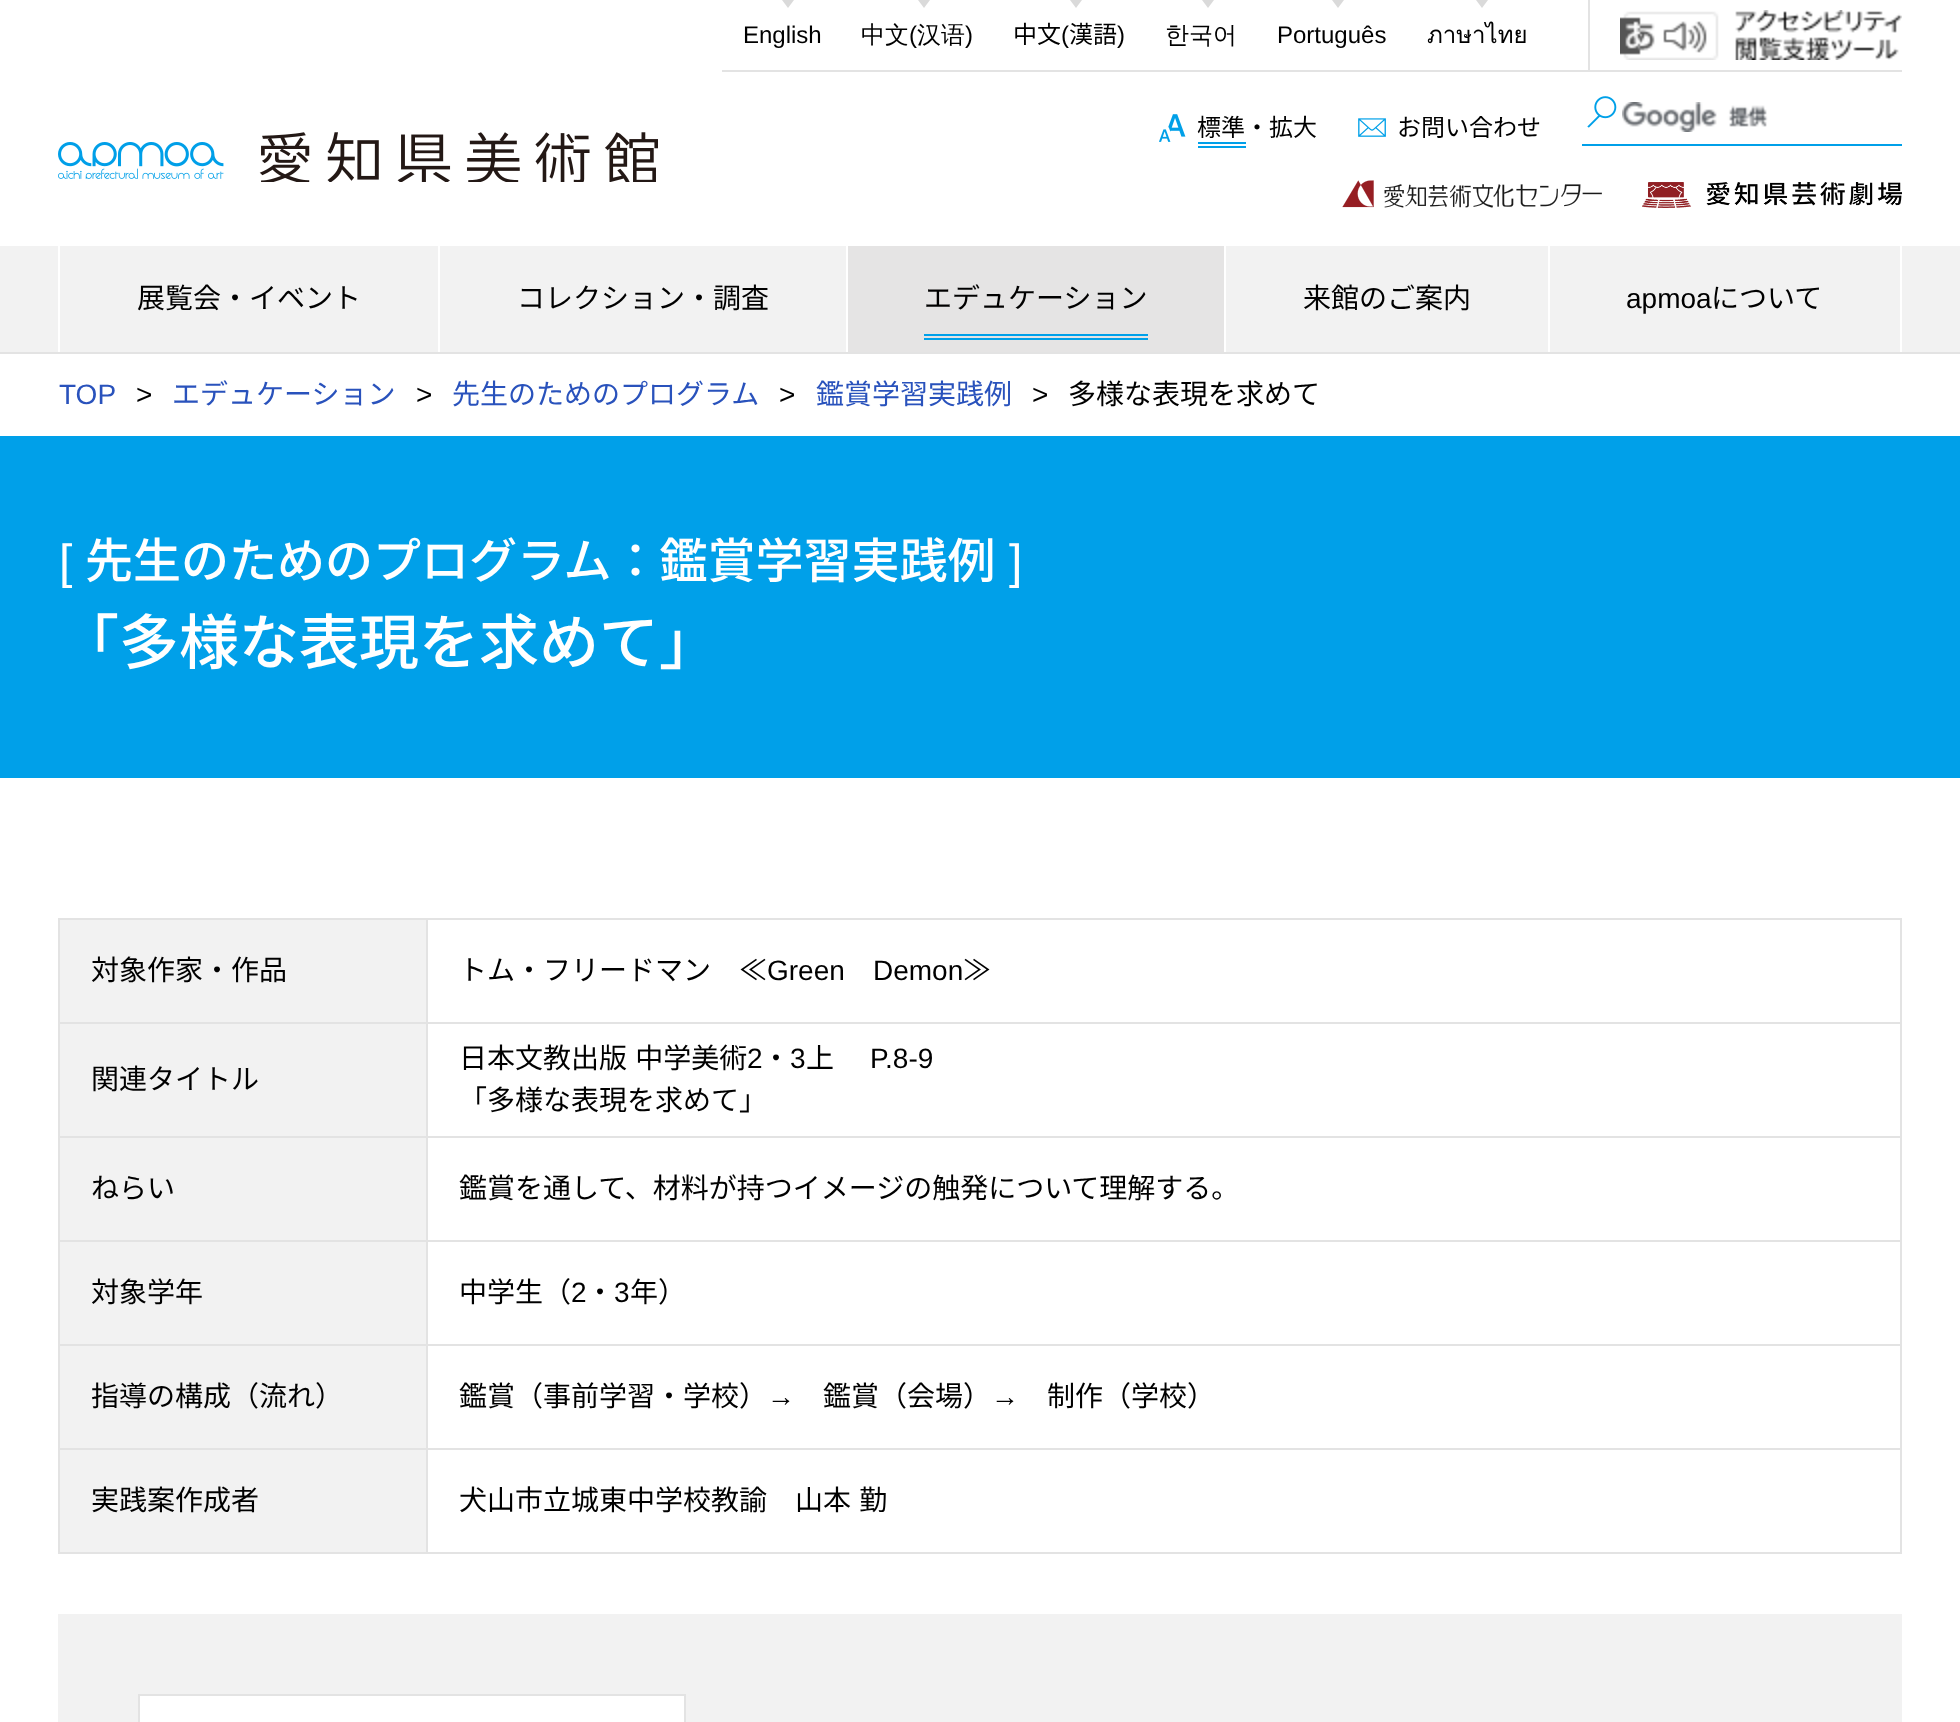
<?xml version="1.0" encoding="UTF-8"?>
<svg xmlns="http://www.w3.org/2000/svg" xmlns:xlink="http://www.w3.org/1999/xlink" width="1960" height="1722">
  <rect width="100%" height="100%" fill="#ffffff" />
  <rect y="352" width="1960" height="2" fill="#e3e3e3" />
  <rect x="722" y="70" width="1180" height="2" fill="#e3e3e3" />
  <path d="M 782 0 h 12 l -6 8 z" fill="#dadada" />
  <path d="M 918 0 h 12 l -6 8 z" fill="#dadada" />
  <path d="M 1070 0 h 12 l -6 8 z" fill="#dadada" />
  <path d="M 1202 0 h 12 l -6 8 z" fill="#dadada" />
  <path d="M 1332 0 h 12 l -6 8 z" fill="#dadada" />
  <path d="M 1476 0 h 12 l -6 8 z" fill="#dadada" />
  <rect x="1588" width="2" height="72" fill="#e3e3e3" />
  <image x="1620" y="10" width="282" height="50" xlink:href="image1.png" />
  <image x="1159" y="114" width="27" height="28" xlink:href="image2.png" />
  <rect x="1198" y="142" width="48" height="2" fill="#00a0e9" />
  <rect x="1198" y="146" width="48" height="2" fill="#00a0e9" />
  <image x="1358" y="118" width="28" height="19" xlink:href="image3.png" />
  <rect x="1582" y="144" width="320" height="2" fill="#00a0e9" />
  <image x="1587" y="96" width="30" height="32" xlink:href="image4.png" />
  <image x="1622" y="102" width="146" height="30" xlink:href="image5.png" />
  <image x="1342" y="180" width="260" height="28" xlink:href="image6.png" />
  <image x="1642" y="182" width="260" height="26" xlink:href="image7.png" />
  <rect y="246" width="1960" height="106" fill="#f2f2f2" />
  <rect x="438" y="246" width="2" height="106" fill="#ffffff" />
  <rect x="58" y="246" width="2" height="106" fill="#ffffff" />
  <rect x="846" y="246" width="2" height="106" fill="#ffffff" />
  <rect x="1224" y="246" width="2" height="106" fill="#ffffff" />
  <rect x="848" y="246" width="376" height="106" fill="#e5e4e4" />
  <rect x="924" y="334" width="224" height="2" fill="#00a0e9" />
  <rect x="924" y="338" width="224" height="2" fill="#00a0e9" />
  <rect x="1548" y="246" width="2" height="106" fill="#ffffff" />
  <rect x="1900" y="246" width="2" height="106" fill="#ffffff" />
  <image x="58" y="132" width="600" height="50" xlink:href="image8.png" />
  <rect y="436" width="1960" height="342" fill="#00a0e9" />
  <rect x="58" y="918" width="1844" height="2" fill="#e3e3e3" />
  <rect x="1900" y="918" width="2" height="636" fill="#e3e3e3" />
  <rect x="58" y="1552" width="1844" height="2" fill="#e3e3e3" />
  <rect x="58" y="918" width="2" height="636" fill="#e3e3e3" />
  <rect x="58" y="1022" width="1844" height="2" fill="#e3e3e3" />
  <rect x="60" y="920" width="366" height="102" fill="#f2f2f2" />
  <rect x="58" y="1136" width="1844" height="2" fill="#e3e3e3" />
  <rect x="60" y="1024" width="366" height="112" fill="#f2f2f2" />
  <rect x="58" y="1240" width="1844" height="2" fill="#e3e3e3" />
  <rect x="60" y="1138" width="366" height="102" fill="#f2f2f2" />
  <rect x="58" y="1344" width="1844" height="2" fill="#e3e3e3" />
  <rect x="60" y="1242" width="366" height="102" fill="#f2f2f2" />
  <rect x="58" y="1448" width="1844" height="2" fill="#e3e3e3" />
  <rect x="60" y="1346" width="366" height="102" fill="#f2f2f2" />
  <rect x="60" y="1450" width="366" height="102" fill="#f2f2f2" />
  <rect x="426" y="918" width="2" height="636" fill="#e3e3e3" />
  <rect x="58" y="1614" width="1844" height="108" fill="#f2f2f2" />
  <rect x="139" y="1695" width="546" height="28" fill="#ffffff" stroke="#e3e3e3" stroke-width="2" />
  <text x="743" y="43" style="font-family: Liberation Sans; font-size: 24px; fill: #000000">English</text>
  <text x="861" y="43" style="font-family: WenQuanYi Zen Hei; font-size: 24px; font-weight: 500; fill: #000000">中文</text>
  <text x="909" y="43" style="font-family: Liberation Sans; font-size: 24px; fill: #000000">(</text>
  <text x="917" y="43" style="font-family: WenQuanYi Zen Hei; font-size: 24px; font-weight: 500; fill: #000000">汉语</text>
  <text x="965" y="43" style="font-family: Liberation Sans; font-size: 24px; fill: #000000">)</text>
  <text x="1013" y="43" style="font-family: Noto Sans JP; font-size: 24px; fill: #000000">中文</text>
  <text x="1061" y="43" style="font-family: Liberation Sans; font-size: 24px; fill: #000000">(</text>
  <text x="1069" y="43" style="font-family: Noto Sans JP; font-size: 24px; fill: #000000">漢語</text>
  <text x="1117" y="43" style="font-family: Liberation Sans; font-size: 24px; fill: #000000">)</text>
  <text x="1165" y="43" style="font-family: WenQuanYi Zen Hei; font-size: 24px; font-weight: 500; fill: #000000">한국어</text>
  <text x="1277" y="43" style="font-family: Liberation Sans; font-size: 24px; fill: #000000">Português</text>
  <text x="1427" y="43" style="font-family: Loma; font-size: 24px; fill: #000000">ภาษาไทย</text>
  <text x="1197" y="136" style="font-family: Noto Sans JP; font-size: 24px; fill: #000000">標準・拡大</text>
  <text x="1397" y="136" style="font-family: Noto Sans JP; font-size: 24px; fill: #000000">お問い合わせ</text>
  <text x="137" y="308" style="font-family: Noto Sans JP; font-size: 28px; fill: #000000">展覧会・イベント</text>
  <text x="517" y="308" style="font-family: Noto Sans JP; font-size: 28px; fill: #000000">コレクション・調査</text>
  <text x="924" y="308" style="font-family: Noto Sans JP; font-size: 28px; fill: #000000">エデュケーション</text>
  <text x="1303" y="308" style="font-family: Noto Sans JP; font-size: 28px; fill: #000000">来館のご案内</text>
  <text x="1626" y="308" style="font-family: Liberation Sans; font-size: 28px; fill: #000000">apmoa</text>
  <text x="1711" y="308" style="font-family: Noto Sans JP; font-size: 28px; fill: #000000">について</text>
  <text x="59" y="404" style="font-family: Liberation Sans; font-size: 28px; fill: #2952bc">TOP</text>
  <text x="136" y="404" style="font-family: Liberation Sans; font-size: 28px; fill: #000000">&gt;</text>
  <text x="172" y="404" style="font-family: Noto Sans JP; font-size: 28px; fill: #2952bc">エデュケーション</text>
  <text x="416" y="404" style="font-family: Liberation Sans; font-size: 28px; fill: #000000">&gt;</text>
  <text x="452" y="404" style="font-family: Noto Sans JP; font-size: 28px; fill: #2952bc">先生のためのプログラム</text>
  <text x="779" y="404" style="font-family: Liberation Sans; font-size: 28px; fill: #000000">&gt;</text>
  <text x="816" y="404" style="font-family: Noto Sans JP; font-size: 28px; fill: #2952bc">鑑賞学習実践例</text>
  <text x="1032" y="404" style="font-family: Liberation Sans; font-size: 28px; fill: #000000">&gt;</text>
  <text x="1068" y="404" style="font-family: Noto Sans JP; font-size: 28px; fill: #000000">多様な表現を求めて</text>
  <text x="59" y="578" style="font-family: Liberation Sans; font-size: 48px; fill: #ffffff">[</text>
  <text x="85" y="578" style="font-family: Noto Sans JP; font-size: 48px; font-weight: 500; fill: #ffffff">先生のためのプログラム：鑑賞学習実践例</text>
  <text x="1009" y="578" style="font-family: Liberation Sans; font-size: 48px; fill: #ffffff">]</text>
  <text x="59" y="664" style="font-family: Noto Sans JP; font-size: 60px; font-weight: 500; fill: #ffffff">「多様な表現を求めて」</text>
  <text x="91" y="980" style="font-family: Noto Sans JP; font-size: 28px; fill: #000000">対象作家・作品</text>
  <text x="459" y="980" style="font-family: Noto Sans JP; font-size: 28px; fill: #000000">トム・フリードマン　≪</text>
  <text x="767" y="980" style="font-family: Liberation Sans; font-size: 28px; fill: #000000">Green</text>
  <text x="873" y="980" style="font-family: Liberation Sans; font-size: 28px; fill: #000000">Demon</text>
  <text x="963" y="980" style="font-family: Noto Sans JP; font-size: 28px; fill: #000000">≫</text>
  <text x="91" y="1089" style="font-family: Noto Sans JP; font-size: 28px; fill: #000000">関連タイトル</text>
  <text x="459" y="1068" word-spacing="2" style="font-family: Noto Sans JP; font-size: 28px; fill: #000000">日本文教出版 中学美術</text>
  <text x="747" y="1068" style="font-family: Liberation Sans; font-size: 28px; fill: #000000">2</text>
  <text x="762" y="1068" style="font-family: Noto Sans JP; font-size: 28px; fill: #000000">・</text>
  <text x="790" y="1068" style="font-family: Liberation Sans; font-size: 28px; fill: #000000">3</text>
  <text x="806" y="1068" style="font-family: Noto Sans JP; font-size: 28px; fill: #000000">上</text>
  <text x="870" y="1068" style="font-family: Liberation Sans; font-size: 28px; fill: #000000">P.8-9</text>
  <text x="459" y="1110" style="font-family: Noto Sans JP; font-size: 28px; fill: #000000">「多様な表現を求めて」</text>
  <text x="91" y="1198" style="font-family: Noto Sans JP; font-size: 28px; fill: #000000">ねらい</text>
  <text x="459" y="1198" style="font-family: Noto Sans JP; font-size: 28px; fill: #000000">鑑賞を通して、材料が持つイメージの触発について理解する。</text>
  <text x="91" y="1302" style="font-family: Noto Sans JP; font-size: 28px; fill: #000000">対象学年</text>
  <text x="459" y="1302" style="font-family: Noto Sans JP; font-size: 28px; fill: #000000">中学生（</text>
  <text x="571" y="1302" style="font-family: Liberation Sans; font-size: 28px; fill: #000000">2</text>
  <text x="586" y="1302" style="font-family: Noto Sans JP; font-size: 28px; fill: #000000">・</text>
  <text x="614" y="1302" style="font-family: Liberation Sans; font-size: 28px; fill: #000000">3</text>
  <text x="630" y="1302" style="font-family: Noto Sans JP; font-size: 28px; fill: #000000">年）</text>
  <text x="91" y="1406" style="font-family: Noto Sans JP; font-size: 28px; fill: #000000">指導の構成（流れ）</text>
  <text x="459" y="1406" style="font-family: Noto Sans JP; font-size: 28px; fill: #000000">鑑賞（事前学習・学校）</text>
  <text x="767" y="1406" style="font-family: Liberation Sans; font-size: 28px; fill: #000000">→</text>
  <text x="823" y="1406" style="font-family: Noto Sans JP; font-size: 28px; fill: #000000">鑑賞（会場）</text>
  <text x="991" y="1406" style="font-family: Liberation Sans; font-size: 28px; fill: #000000">→</text>
  <text x="1047" y="1406" style="font-family: Noto Sans JP; font-size: 28px; fill: #000000">制作（学校）</text>
  <text x="91" y="1510" style="font-family: Noto Sans JP; font-size: 28px; fill: #000000">実践案作成者</text>
  <text x="459" y="1510" word-spacing="2" style="font-family: Noto Sans JP; font-size: 28px; fill: #000000">犬山市立城東中学校教諭　山本 勤</text>
</svg>
